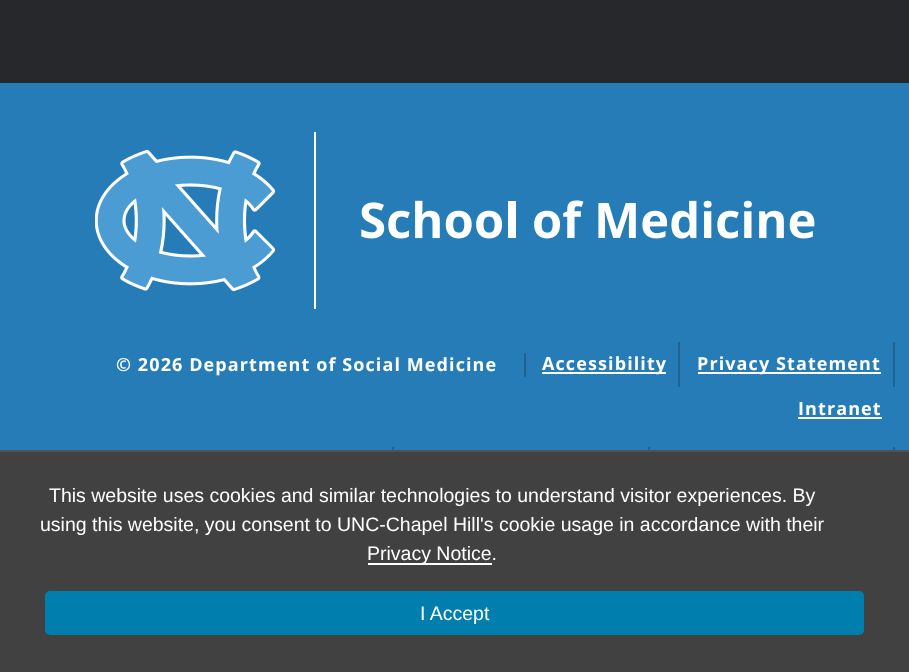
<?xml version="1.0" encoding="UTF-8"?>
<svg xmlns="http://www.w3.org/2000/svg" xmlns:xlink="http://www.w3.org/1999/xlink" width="909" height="672">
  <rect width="100%" height="100%" fill="#26282b" />
  <rect y="83" width="909" height="367" fill="#257cb7" />
  <image x="95" y="132" width="720" height="177" xlink:href="image1.png" />
  <rect x="524" y="353" width="2" height="24" fill="#1e6392" />
  <rect x="678" y="342" width="2" height="45" fill="#1e6392" />
  <rect x="542" y="372" width="124" height="2" fill="#ffffff" />
  <rect x="893" y="342" width="2" height="45" fill="#1e6392" />
  <rect x="698" y="372" width="183" height="2" fill="#ffffff" />
  <rect x="798" y="417" width="84" height="2" fill="#ffffff" />
  <rect x="392" y="447" width="2" height="3" fill="#1e6392" />
  <rect x="648" y="447" width="2" height="3" fill="#1e6392" />
  <rect x="893" y="447" width="2" height="3" fill="#1e6392" />
  <rect y="452" width="909" height="220" fill="#414141" />
  <rect y="450" width="909" height="2" fill="#515151" />
  <rect x="368" y="563" width="124" height="2" fill="#ffffff" />
  <rect x="45" y="591" width="819" height="44" rx="5" fill="#007fae" />
  <text x="116" y="371" style="font-family: Open Sans; font-size: 18px; font-weight: bold; letter-spacing: 1.1px; fill: #ffffff">© 2026 Department of Social Medicine</text>
  <text x="542" y="370" style="font-family: Open Sans; font-size: 18px; font-weight: bold; letter-spacing: 1.1px; fill: #ffffff">Accessibility</text>
  <text x="697" y="370" style="font-family: Open Sans; font-size: 18px; font-weight: bold; letter-spacing: 1.1px; fill: #ffffff">Privacy Statement</text>
  <text x="798" y="415" style="font-family: Open Sans; font-size: 18px; font-weight: bold; letter-spacing: 1.1px; fill: #ffffff">Intranet</text>
  <text x="49" y="502" style="font-family: Liberation Sans; font-size: 19.5px; fill: #ffffff">This website uses cookies and similar technologies to understand visitor experiences. By</text>
  <text x="40" y="531" style="font-family: Liberation Sans; font-size: 19.5px; fill: #ffffff">using this website, you consent to UNC-Chapel Hill's cookie usage in accordance with their</text>
  <text x="367" y="560" style="font-family: Liberation Sans; font-size: 19.5px; fill: #ffffff">Privacy Notice.</text>
  <text x="420" y="620" style="font-family: Liberation Sans; font-size: 19.5px; fill: #ffffff">I Accept</text>
</svg>
